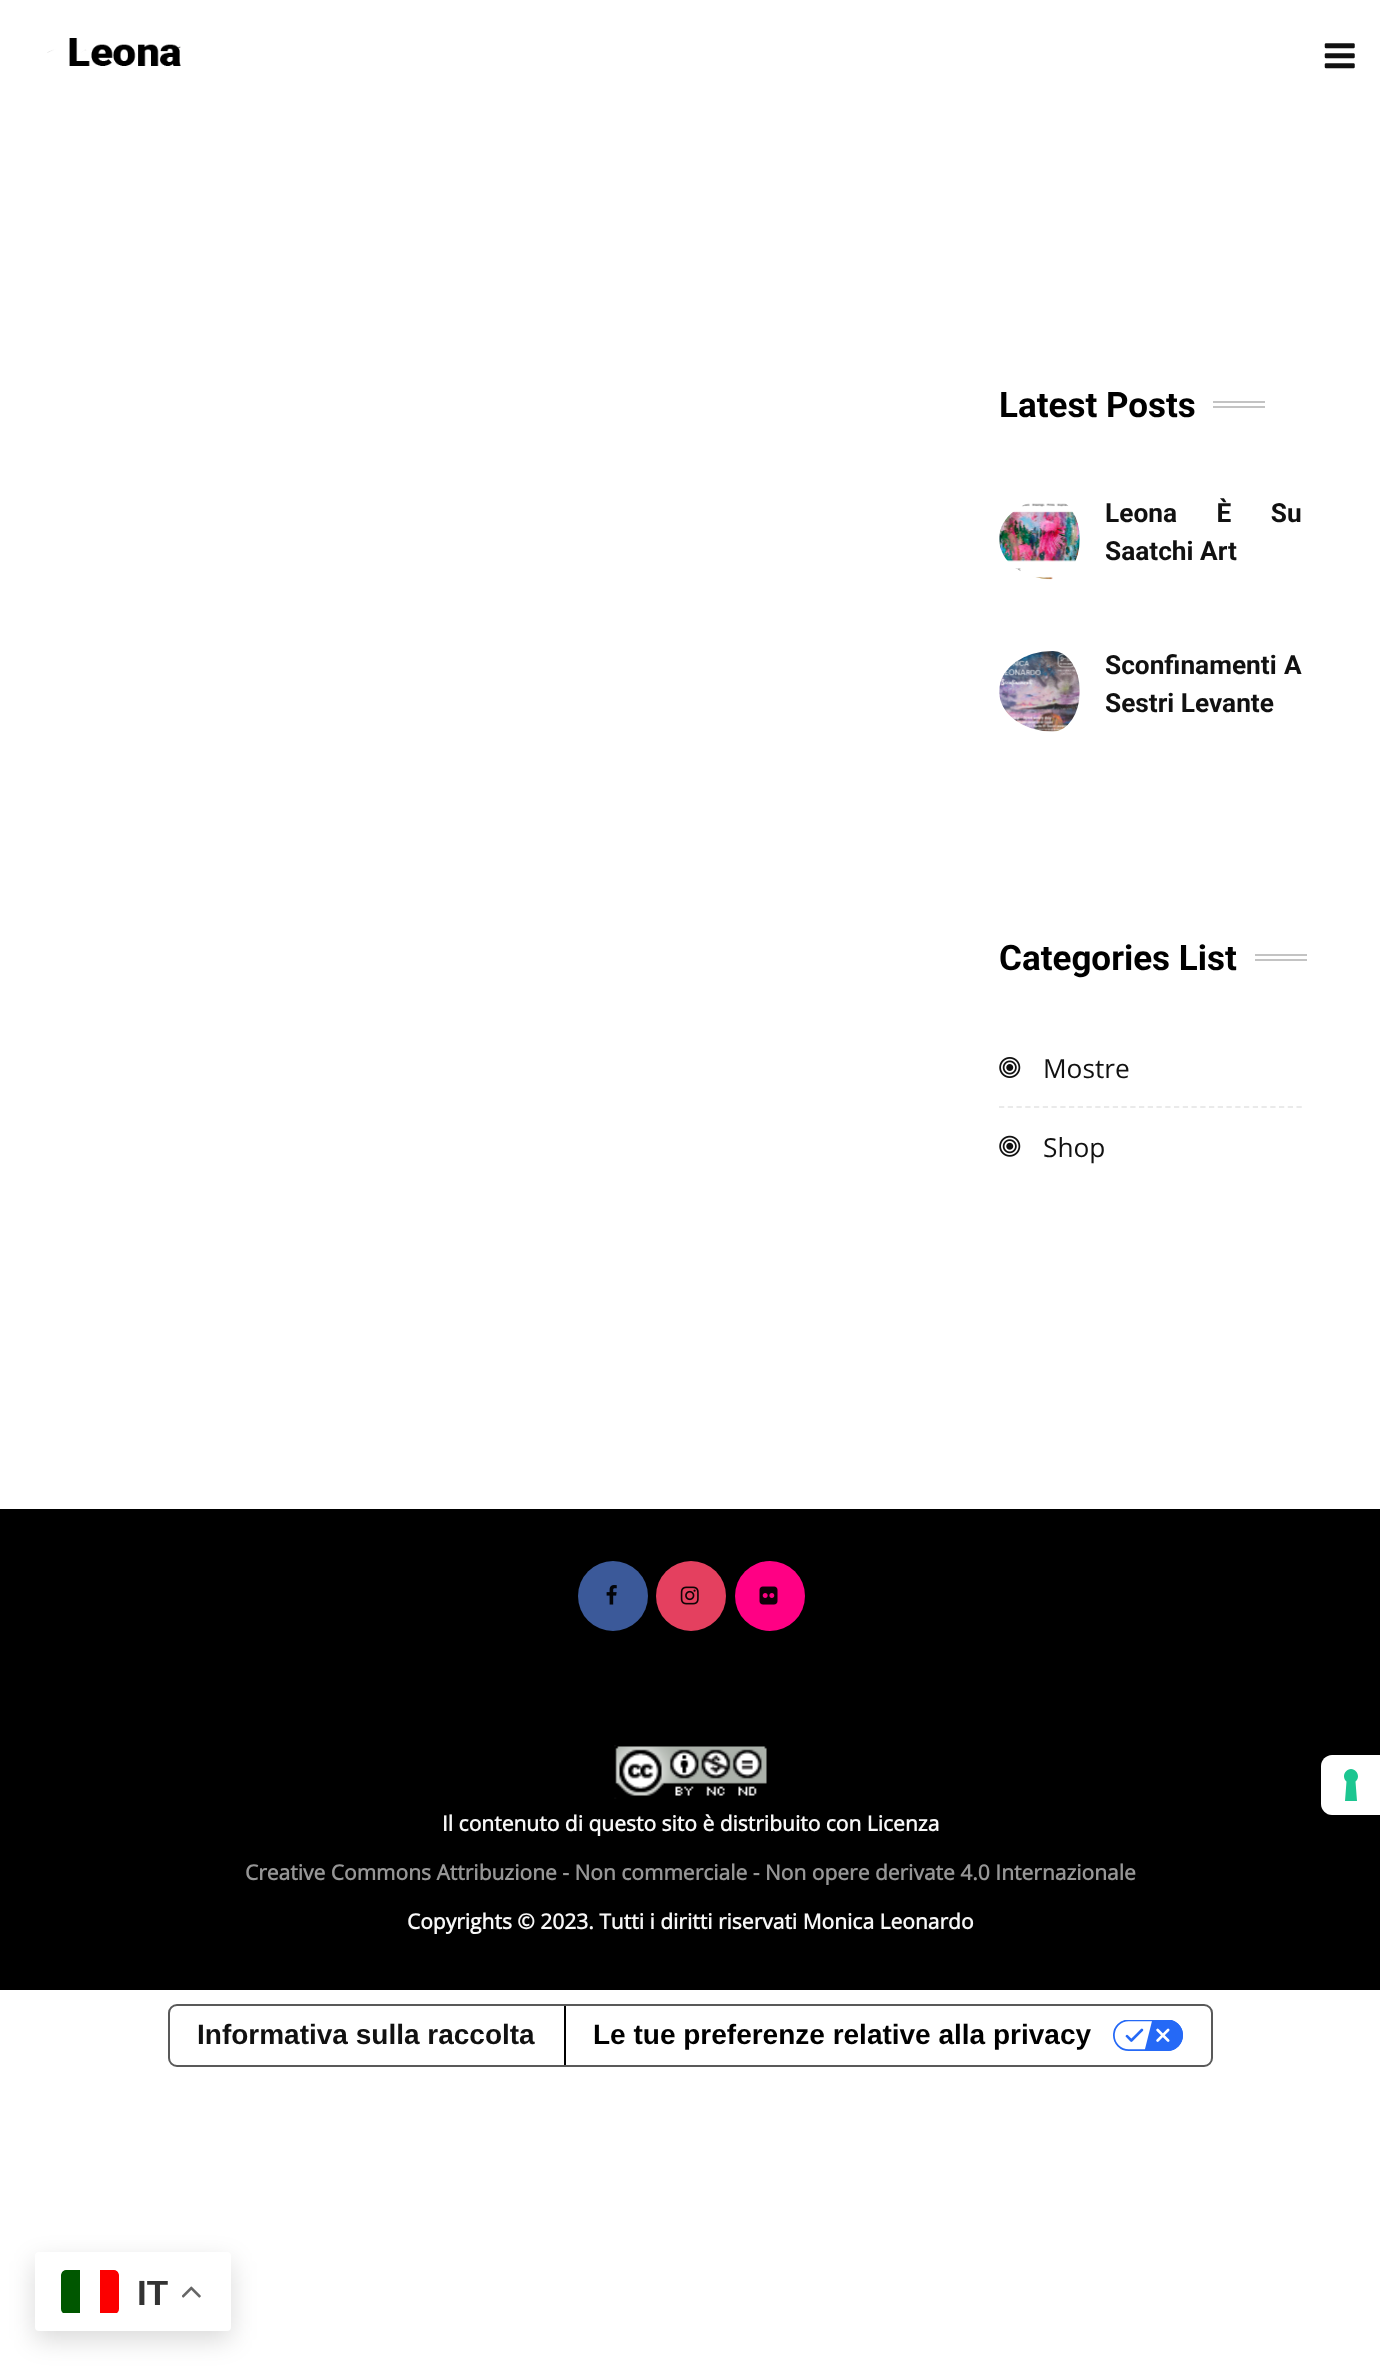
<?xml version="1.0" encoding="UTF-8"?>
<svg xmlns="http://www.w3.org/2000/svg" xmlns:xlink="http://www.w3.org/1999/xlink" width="1380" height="2380">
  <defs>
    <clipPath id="clip1"><rect x="61" y="2270" width="58" height="44" rx="5" /></clipPath>
  </defs>
  <rect width="100%" height="100%" fill="#ffffff" />
  <image x="47" y="38" width="134" height="28" xlink:href="image1.png" />
  <image x="1324" y="43" width="31" height="26" xlink:href="image2.png" />
  <rect x="1213" y="401" width="52" height="2" fill="#c3c3c3" />
  <rect x="1213" y="406" width="52" height="2" fill="#c3c3c3" />
  <image x="999" y="503" width="81" height="77" xlink:href="image3.png" />
  <image x="999" y="651" width="81" height="81" xlink:href="image4.png" />
  <rect x="1255" y="954" width="52" height="2" fill="#c3c3c3" />
  <rect x="1255" y="959" width="52" height="2" fill="#c3c3c3" />
  <path d="M 999 1107 h 303" fill="none" stroke="#eaeaea" stroke-width="1.8" stroke-dasharray="5.25 3.5" />
  <image x="999" y="1057" width="22" height="21" xlink:href="image5.png" />
  <image x="999" y="1135" width="22" height="22" xlink:href="image6.png" />
  <rect y="1509" width="1380" height="481" fill="#000000" />
  <circle cx="613" cy="1596" r="35" fill="#3b5999" />
  <image x="606" y="1585" width="11" height="20" xlink:href="image7.png" />
  <circle cx="691" cy="1596" r="35" fill="#e4405f" />
  <image x="680" y="1586" width="19" height="19" xlink:href="image8.png" />
  <circle cx="770" cy="1596" r="35" fill="#ff0084" />
  <image x="759" y="1586" width="19" height="19" xlink:href="image9.png" />
  <image x="614" y="1745" width="153" height="54" xlink:href="image10.png" />
  <path d="M 1332 1755 h 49 v 60 h -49 c -6 0 -11 -5 -11 -11 v -38 c 0 -6 5 -11 11 -11 z" fill="#ffffff" />
  <path d="M 1351 1769 c 6.5 0.5 9.5 8.5 4.5 12.5 l 1.5 19.5 h -12 l 1.5 -19.5 c -5 -4 -2 -12 4.5 -12.5 z" fill="#1cc691" fill-rule="evenodd" />
  <rect x="169" y="2005" width="1043" height="61" rx="8" fill="none" stroke="#595959" stroke-width="2" />
  <rect x="564" y="2006" width="2" height="59" fill="#000000" />
  <image x="1113" y="2020" width="70" height="31" xlink:href="image11.png" />
  <rect x="35" y="2261" width="196" height="79" rx="4" fill="#000000" fill-opacity="0.15" filter="blur(13px)" />
  <rect x="35" y="2252" width="196" height="79" rx="4" fill="#ffffff" />
  <g clip-path="url(#clip1)">
    <path d="M 66 2270 h 14 v 43 h -19 v -38 c 0 -3 2 -5 5 -5 z" fill="#005700" />
    <path d="M 100 2270 h 14 c 3 0 5 2 5 5 v 38 h -19 z" fill="#fc0000" />
  </g>
  <image x="182" y="2286" width="19" height="12" xlink:href="image12.png" />
  <text x="999" y="417" style="font-family: Roboto; font-size: 35px; font-weight: bold; fill: #000000">Latest Posts</text>
  <text x="1105" y="522" word-spacing="33" style="font-family: Roboto; font-size: 26.25px; font-weight: bold; fill: #111111">Leona È Su</text>
  <text x="1105" y="560" style="font-family: Roboto; font-size: 26.25px; font-weight: bold; fill: #111111">Saatchi Art</text>
  <text x="1105" y="674" word-spacing="1" style="font-family: Roboto; font-size: 26.25px; font-weight: bold; fill: #111111">Sconfinamenti A</text>
  <text x="1105" y="712" style="font-family: Roboto; font-size: 26.25px; font-weight: bold; fill: #111111">Sestri Levante</text>
  <text x="999" y="970" style="font-family: Roboto; font-size: 35px; font-weight: bold; fill: #000000">Categories List</text>
  <text x="1043" y="1078" style="font-family: Open Sans; font-size: 26.25px; fill: #111111">Mostre</text>
  <text x="1043" y="1157" style="font-family: Open Sans; font-size: 26.25px; fill: #111111">Shop</text>
  <text x="442" y="1831" style="font-family: Open Sans; font-size: 21px; font-weight: bold; fill: #f7f7f7">Il contenuto di questo sito è distribuito con Licenza</text>
  <text x="245" y="1880" style="font-family: Open Sans; font-size: 21px; font-weight: bold; fill: #969696">Creative Commons Attribuzione - Non commerciale - Non opere derivate 4.0 Internazionale</text>
  <text x="407" y="1929" style="font-family: Open Sans; font-size: 21px; font-weight: bold; fill: #f7f7f7">Copyrights © 2023. Tutti i diritti riservati Monica Leonardo</text>
  <text x="197" y="2044" style="font-family: Liberation Sans; font-size: 28px; font-weight: bold; fill: #111111">Informativa sulla raccolta</text>
  <text x="593" y="2044" style="font-family: Liberation Sans; font-size: 28px; font-weight: bold; fill: #000000">Le tue preferenze relative alla privacy</text>
  <text x="137" y="2305" style="font-family: Liberation Sans; font-size: 35px; font-weight: bold; fill: #333333">IT</text>
</svg>
